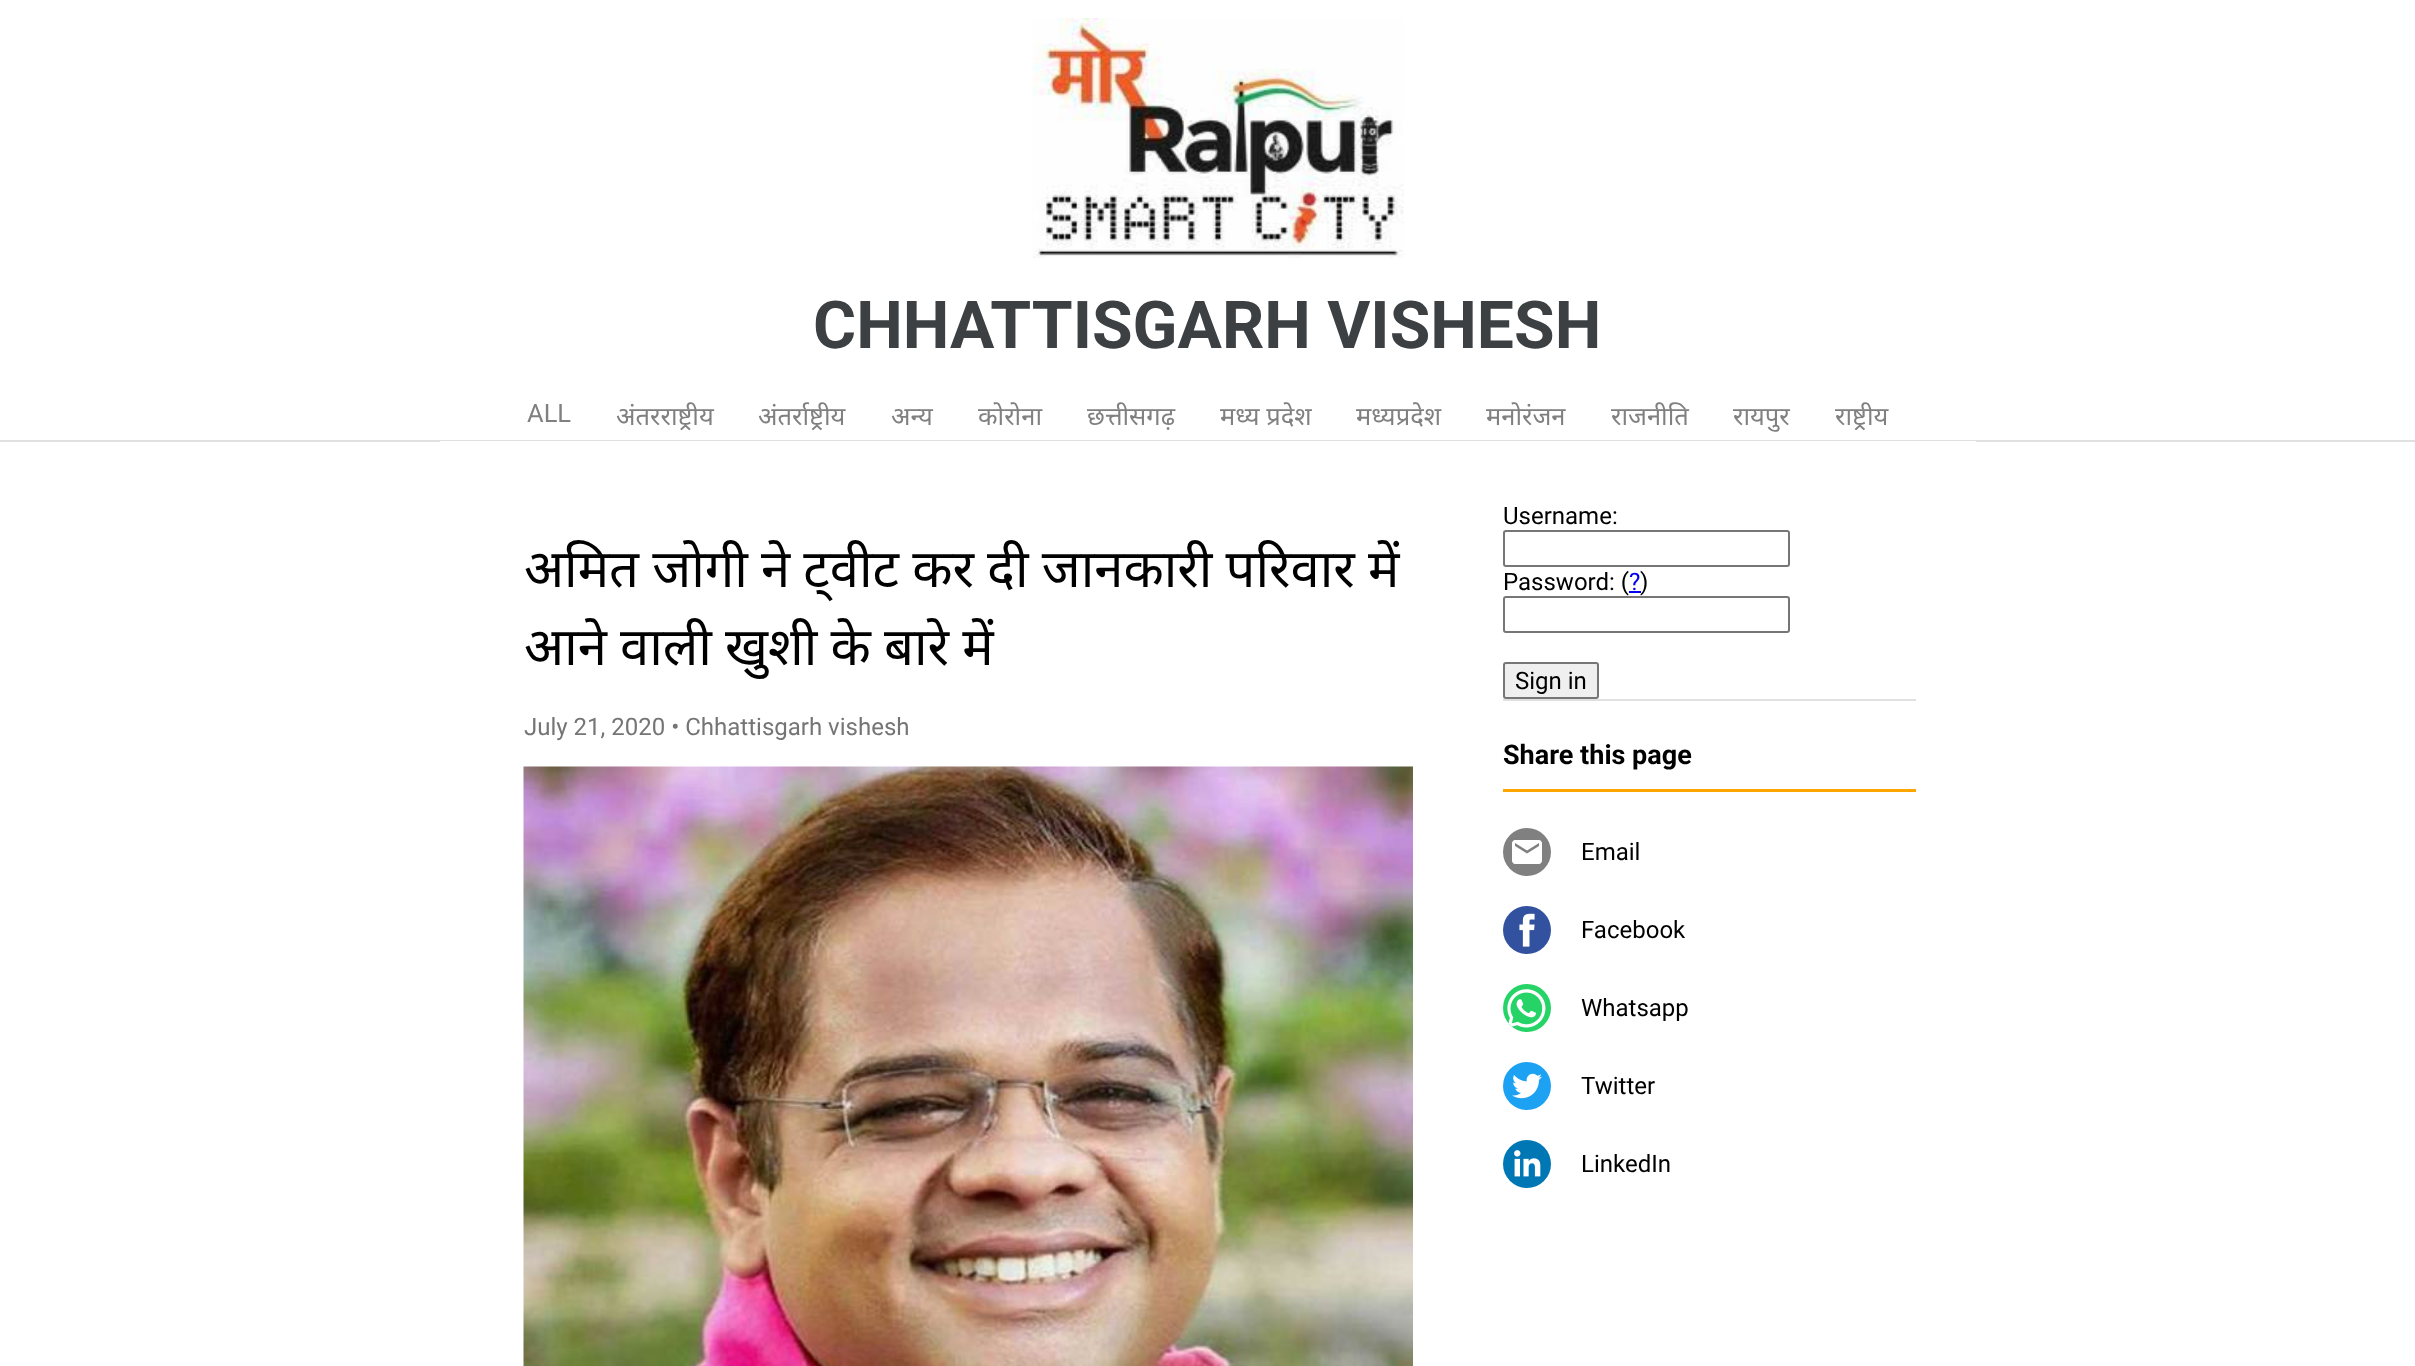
<?xml version="1.0" encoding="UTF-8"?>
<svg xmlns="http://www.w3.org/2000/svg" xmlns:xlink="http://www.w3.org/1999/xlink" width="2415" height="1366">
  <rect width="100%" height="100%" fill="#ffffff" />
  <rect y="440" width="2415" height="2" fill="#e0e0e0" />
  <image x="1032" y="18" width="372" height="240" xlink:href="image1.png" />
  <rect x="440" y="441" width="1536" height="1" fill="#ffffff" />
  <image x="523" y="766" width="890" height="600" xlink:href="image2.png" />
  <rect x="1504" y="531" width="285" height="35" rx="2" fill="none" stroke="#767676" stroke-width="2" />
  <rect x="1629" y="591" width="12" height="2" fill="#0000ee" />
  <rect x="1504" y="597" width="285" height="35" rx="2" fill="none" stroke="#767676" stroke-width="2" />
  <rect x="1504" y="663" width="94" height="35" rx="2" fill="#efefef" stroke="#767676" stroke-width="2" />
  <rect x="1503" y="699" width="413" height="2" fill="#e0e0e0" />
  <rect x="1503" y="789" width="413" height="3" fill="#ffa500" />
  <circle cx="1527" cy="852" r="24" fill="#808080" />
  <image x="1512" y="840" width="30" height="24" xlink:href="image3.png" />
  <circle cx="1527" cy="930" r="24" fill="#32529f" />
  <image x="1519" y="913" width="16" height="34" xlink:href="image4.png" />
  <circle cx="1527" cy="1008" r="24" fill="#25d366" />
  <image x="1507" y="989" width="39" height="39" xlink:href="image5.png" />
  <circle cx="1527" cy="1086" r="24" fill="#1da1f2" />
  <image x="1512" y="1073" width="30" height="26" xlink:href="image6.png" />
  <circle cx="1527" cy="1164" r="24" fill="#0077b5" />
  <image x="1514" y="1150" width="27" height="27" xlink:href="image7.png" />
  <text x="813" y="348" style="font-family: Roboto; font-size: 66px; font-weight: bold; fill: #3c4043">CHHATTISGARH VISHESH</text>
  <text x="527" y="422" style="font-family: Roboto; font-size: 25.5px; fill: #808080">ALL</text>
  <text x="616" y="425" style="font-family: Noto Sans; font-size: 25.5px; fill: #808080">अंतरराष्ट्रीय</text>
  <text x="758" y="425" style="font-family: Noto Sans; font-size: 25.5px; fill: #808080">अंतर्राष्ट्रीय</text>
  <text x="891" y="425" style="font-family: Noto Sans; font-size: 25.5px; fill: #808080">अन्य</text>
  <text x="978" y="425" style="font-family: Noto Sans; font-size: 25.5px; fill: #808080">कोरोना</text>
  <text x="1087" y="425" style="font-family: Noto Sans; font-size: 25.5px; fill: #808080">छत्तीसगढ़</text>
  <text x="1220" y="425" style="font-family: Noto Sans; font-size: 25.5px; fill: #808080">मध्य प्रदेश</text>
  <text x="1356" y="425" style="font-family: Noto Sans; font-size: 25.5px; fill: #808080">मध्यप्रदेश</text>
  <text x="1486" y="425" style="font-family: Noto Sans; font-size: 25.5px; fill: #808080">मनोरंजन</text>
  <text x="1611" y="425" style="font-family: Noto Sans; font-size: 25.5px; fill: #808080">राजनीति</text>
  <text x="1733" y="425" style="font-family: Noto Sans; font-size: 25.5px; fill: #808080">रायपुर</text>
  <text x="1835" y="425" style="font-family: Noto Sans; font-size: 25.5px; fill: #808080">राष्ट्रीय</text>
  <text x="524" y="587" word-spacing="-0.5" style="font-family: Noto Sans; font-size: 52.5px; fill: #000000">अमित जोगी ने ट्वीट कर दी जानकारी परिवार में</text>
  <text x="524" y="665" word-spacing="-0.5" style="font-family: Noto Sans; font-size: 52.5px; fill: #000000">आने वाली खुशी के बारे में</text>
  <text x="524" y="735" style="font-family: Roboto; font-size: 24px; fill: #757575">July 21, 2020 • Chhattisgarh vishesh</text>
  <text x="1503" y="524" style="font-family: Roboto; font-size: 24px; fill: #000000">Username:</text>
  <text x="1503" y="590" style="font-family: Roboto; font-size: 24px; fill: #000000">Password: (</text>
  <text x="1629" y="590" style="font-family: Roboto; font-size: 24px; fill: #0000ee">?</text>
  <text x="1640" y="590" style="font-family: Roboto; font-size: 24px; fill: #000000">)</text>
  <text x="1515" y="689" style="font-family: Roboto; font-size: 24px; fill: #000000">Sign in</text>
  <text x="1503" y="764" style="font-family: Roboto; font-size: 27px; font-weight: bold; fill: #000000">Share this page</text>
  <text x="1581" y="860" style="font-family: Roboto; font-size: 24px; fill: #000000">Email</text>
  <text x="1581" y="938" style="font-family: Roboto; font-size: 24px; fill: #000000">Facebook</text>
  <text x="1581" y="1016" style="font-family: Roboto; font-size: 24px; fill: #000000">Whatsapp</text>
  <text x="1581" y="1094" style="font-family: Roboto; font-size: 24px; fill: #000000">Twitter</text>
  <text x="1581" y="1172" style="font-family: Roboto; font-size: 24px; fill: #000000">LinkedIn</text>
</svg>
